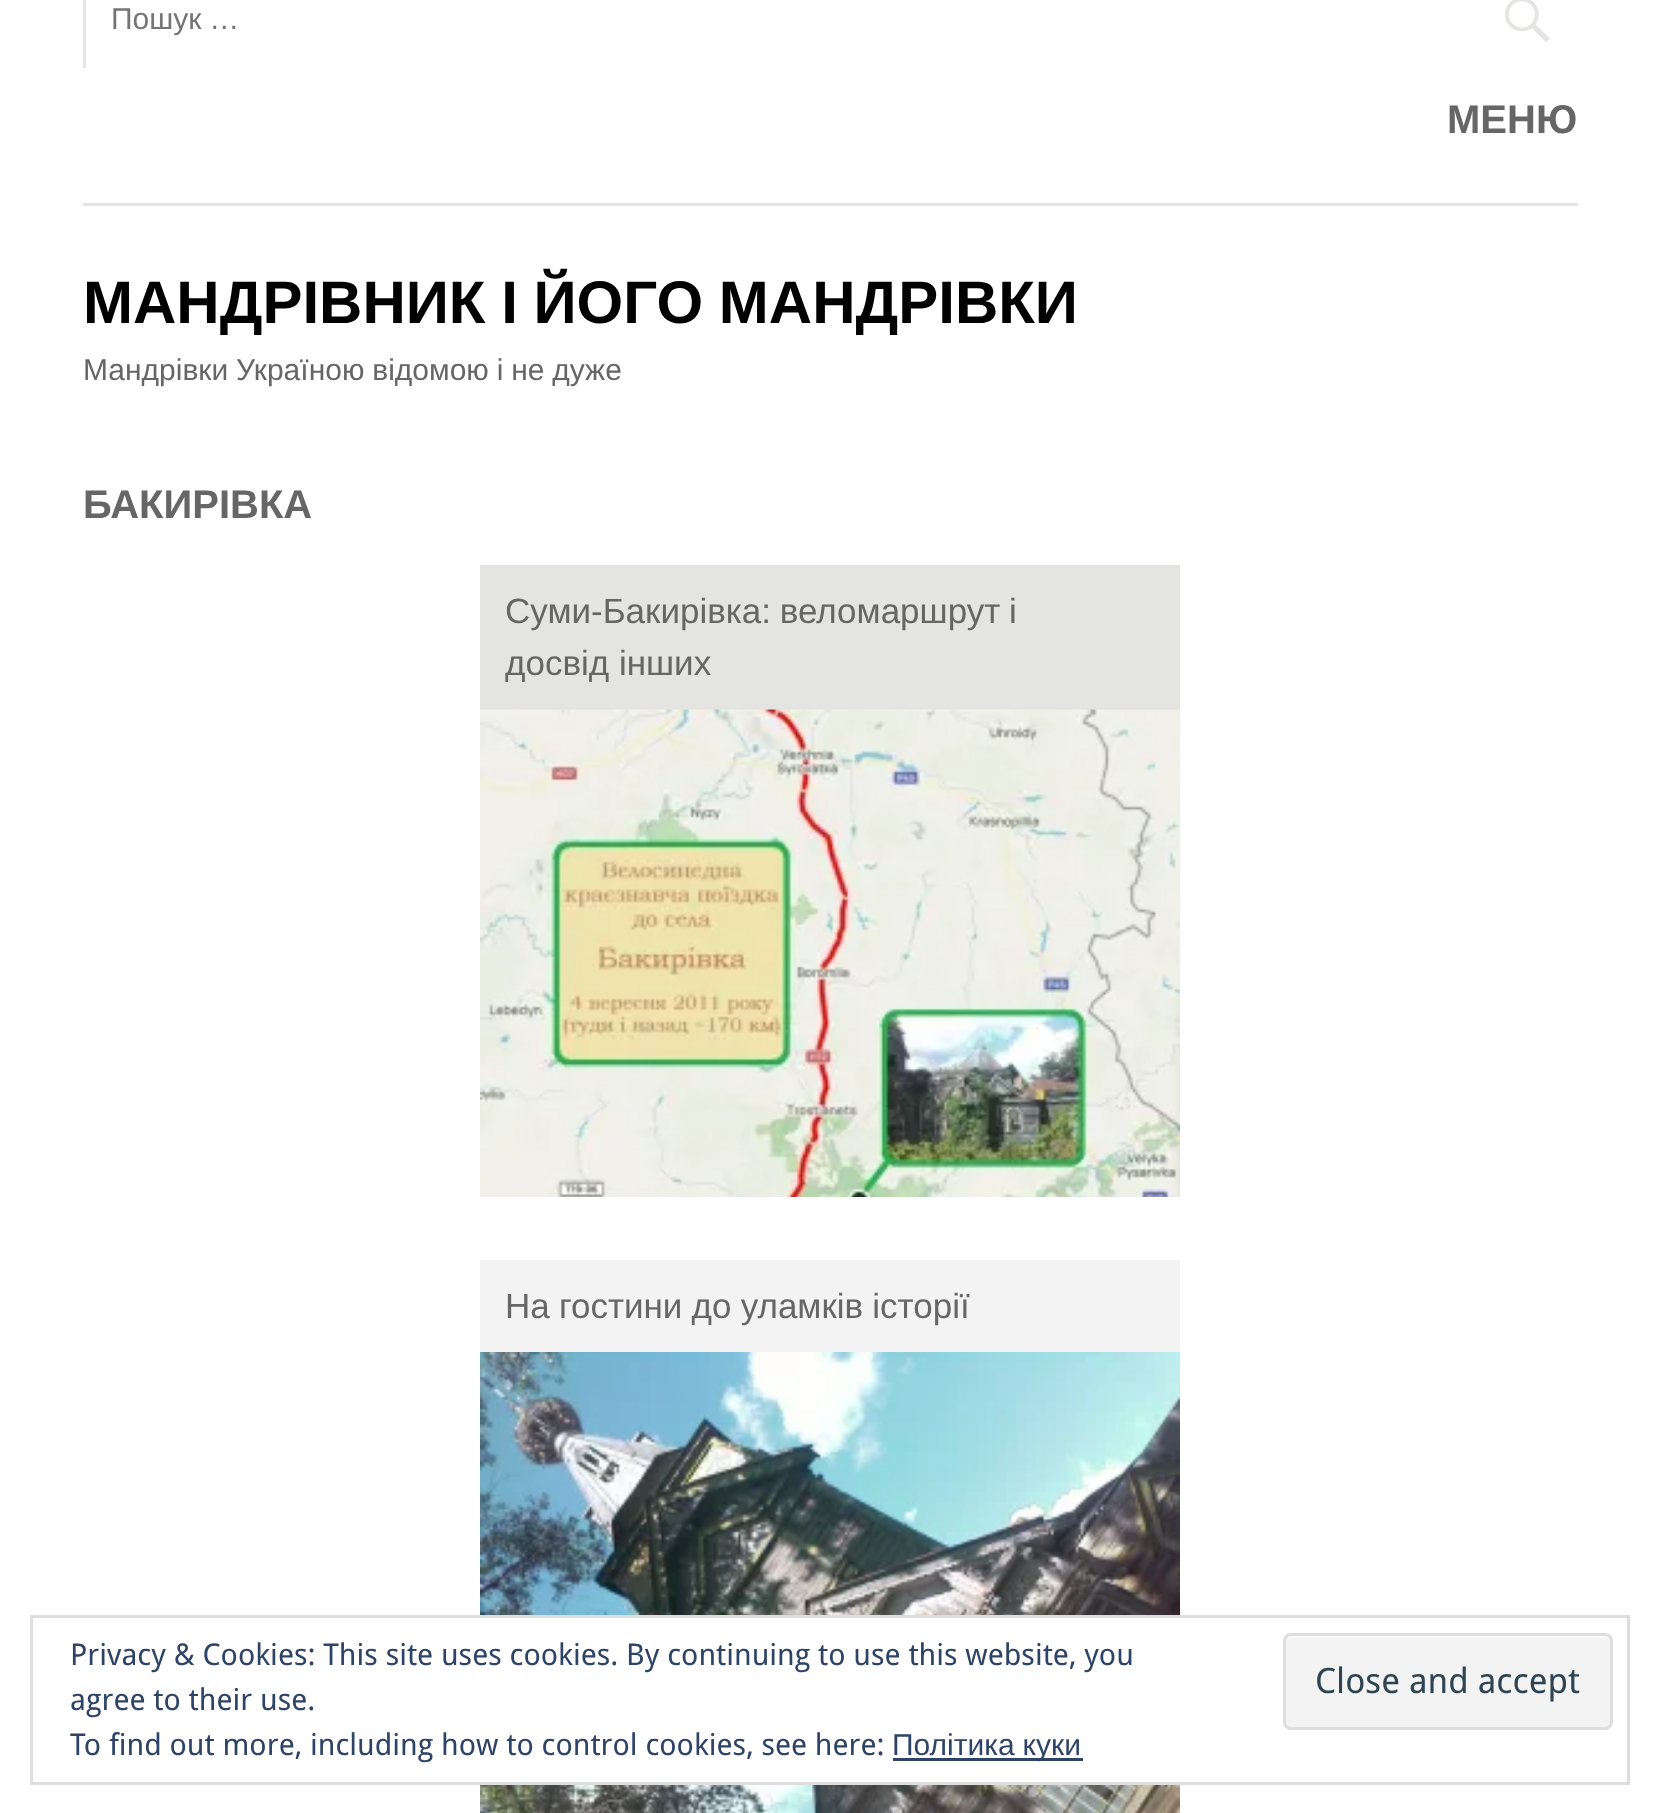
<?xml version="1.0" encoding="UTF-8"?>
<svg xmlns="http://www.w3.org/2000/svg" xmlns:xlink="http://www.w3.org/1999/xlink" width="1658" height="1813">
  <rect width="100%" height="100%" fill="#ffffff" />
  <rect x="83" y="203" width="1495" height="3" fill="#e4e4e2" />
  <rect x="83" width="3" height="68" fill="#e4e4e2" />
  <image x="1505" y="0" width="45" height="43" xlink:href="image1.png" />
  <rect x="480" y="565" width="700" height="145" fill="#e4e4e2" />
  <image x="480" y="709" width="700" height="488" xlink:href="image2.png" />
  <rect x="480" y="1260" width="700" height="92" fill="#f3f3f3" />
  <image x="480" y="1352" width="700" height="461" xlink:href="image3.png" />
  <rect x="480" y="1618" width="700" height="164" fill="#ffffff" />
  <rect x="31.5" y="1616.5" width="1597" height="167" fill="none" stroke="#dedede" stroke-width="3" />
  <rect x="1283" y="1633" width="330" height="97" rx="8" fill="#f3f3f3" />
  <path d="M 1290 1638 h 315 c 3 0 5 2 5 4 v -2 c 0 -3 -2 -5 -5 -5 h -315 c -3 0 -5 2 -5 5 v 2 c 0 -2 2 -4 5 -4 z" fill="#f9f9f9" />
  <rect x="1284.5" y="1634.5" width="327" height="94" rx="6.5" fill="none" stroke="#dedede" stroke-width="3" />
  <rect x="893" y="1758" width="190" height="3" fill="#2e4467" />
  <text x="111" y="29" word-spacing="-0.5" style="font-family: Liberation Sans; font-size: 30px; fill: #757575">Пошук …</text>
  <text x="1447" y="133" style="font-family: Liberation Sans; font-size: 40px; font-weight: bold; fill: #666666">МЕНЮ</text>
  <text x="83" y="323" word-spacing="-1" style="font-family: Liberation Sans; font-size: 60px; font-weight: bold; fill: #000000">МАНДРІВНИК І ЙОГО МАНДРІВКИ</text>
  <text x="83" y="380" word-spacing="-0.5" style="font-family: Liberation Sans; font-size: 30px; fill: #666666">Мандрівки Україною відомою і не дуже</text>
  <text x="83" y="518" style="font-family: Liberation Sans; font-size: 40px; font-weight: bold; fill: #666666">БАКИРІВКА</text>
  <text x="505" y="623" word-spacing="-1" style="font-family: Liberation Sans; font-size: 35px; fill: #666666">Суми-Бакирівка: веломаршрут і</text>
  <text x="505" y="675" style="font-family: Liberation Sans; font-size: 35px; fill: #666666">досвід інших</text>
  <text x="505" y="1318" word-spacing="-0.5" style="font-family: Liberation Sans; font-size: 35px; fill: #666666">На гостини до уламків історії</text>
  <text x="70" y="1665" style="font-family: Droid Sans; font-size: 30px; fill: #2e4467">Privacy &amp; Cookies: This site uses cookies. By continuing to use this website, you</text>
  <text x="70" y="1710" style="font-family: Droid Sans; font-size: 30px; fill: #2e4467">agree to their use.</text>
  <text x="1315" y="1693" style="font-family: Droid Sans; font-size: 35px; fill: #2e4453">Close and accept</text>
  <text x="70" y="1755" style="font-family: Droid Sans; font-size: 30px; fill: #2e4467">To find out more, including how to control cookies, see here:</text>
  <text x="892" y="1755" word-spacing="-0.5" style="font-family: Liberation Sans; font-size: 30px; fill: #2e4467">Політика куки</text>
</svg>
